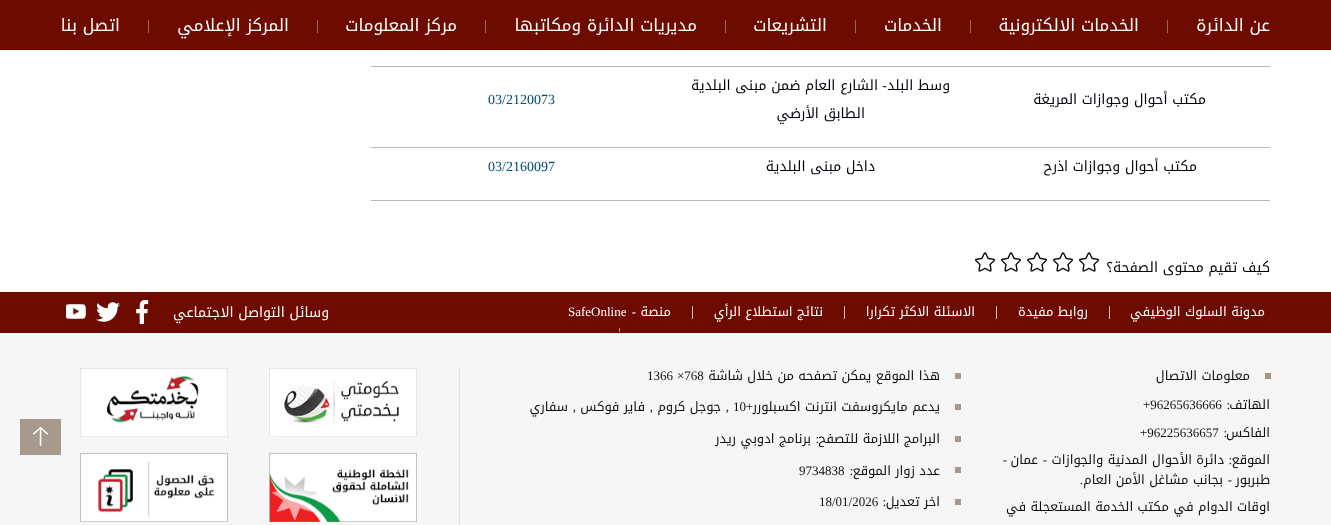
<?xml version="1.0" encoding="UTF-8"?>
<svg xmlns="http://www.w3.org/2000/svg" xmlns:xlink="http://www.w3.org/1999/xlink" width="1331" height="525">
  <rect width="100%" height="100%" fill="#ffffff" />
  <rect width="1331" height="50" fill="#6d0b00" />
  <rect x="371" y="66" width="899" height="1" fill="#b7b7b7" />
  <rect x="371" y="147" width="899" height="1" fill="#b7b7b7" />
  <rect x="371" y="200" width="899" height="1" fill="#b7b7b7" />
  <image x="1079" y="252" width="20" height="20" xlink:href="image1.png" />
  <image x="1053" y="252" width="20" height="20" xlink:href="image1.png" />
  <image x="1027" y="252" width="20" height="20" xlink:href="image1.png" />
  <image x="1001" y="252" width="20" height="20" xlink:href="image1.png" />
  <image x="975" y="252" width="20" height="20" xlink:href="image1.png" />
  <rect y="292" width="1331" height="41" fill="#6d0b00" />
  <rect x="619" y="328" width="1" height="4" fill="#a7998c" />
  <image x="136" y="300" width="13" height="24" xlink:href="image2.png" />
  <image x="96" y="302" width="24" height="20" xlink:href="image3.png" />
  <image x="66" y="304" width="20" height="15" xlink:href="image4.png" />
  <rect y="333" width="1331" height="192" fill="#f6f6f6" />
  <rect x="1265" y="373" width="6" height="6" fill="#a7998c" />
  <rect x="459" y="368" width="1" height="157" fill="#dee2e6" />
  <rect x="955" y="373" width="6" height="6" fill="#a7998c" />
  <rect x="955" y="404" width="6" height="6" fill="#a7998c" />
  <rect x="955" y="436" width="6" height="6" fill="#a7998c" />
  <rect x="955" y="467" width="6" height="6" fill="#a7998c" />
  <rect x="955" y="499" width="6" height="6" fill="#a7998c" />
  <image x="269" y="368" width="148" height="69" xlink:href="image5.png" />
  <image x="80" y="368" width="148" height="69" xlink:href="image6.png" />
  <image x="269" y="453" width="148" height="69" xlink:href="image7.png" />
  <image x="80" y="453" width="148" height="69" xlink:href="image8.png" />
  <rect x="20" y="419" width="41" height="36" fill="#a7998c" />
  <image x="33" y="427" width="15" height="19" xlink:href="image9.png" />
  <text x="1270" y="31" style="font-family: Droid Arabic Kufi; font-size: 17px; direction: rtl; fill: #ffffff">عن الدائرة</text>
  <text x="1166" y="30" style="font-family: Liberation Serif; font-size: 14px; fill: #b68580">|</text>
  <text x="1139" y="31" style="font-family: Droid Arabic Kufi; font-size: 17px; direction: rtl; fill: #ffffff">الخدمات الالكترونية</text>
  <text x="969" y="30" style="font-family: Liberation Serif; font-size: 14px; fill: #b68580">|</text>
  <text x="942" y="31" style="font-family: Droid Arabic Kufi; font-size: 17px; direction: rtl; fill: #ffffff">الخدمات</text>
  <text x="854" y="30" style="font-family: Liberation Serif; font-size: 14px; fill: #b68580">|</text>
  <text x="827" y="31" style="font-family: Droid Arabic Kufi; font-size: 17px; direction: rtl; fill: #ffffff">التشريعات</text>
  <text x="724" y="30" style="font-family: Liberation Serif; font-size: 14px; fill: #b68580">|</text>
  <text x="697" y="31" style="font-family: Droid Arabic Kufi; font-size: 17px; direction: rtl; fill: #ffffff">مديريات الدائرة ومكاتبها</text>
  <text x="484" y="30" style="font-family: Liberation Serif; font-size: 14px; fill: #b68580">|</text>
  <text x="457" y="31" style="font-family: Droid Arabic Kufi; font-size: 17px; direction: rtl; fill: #ffffff">مركز المعلومات</text>
  <text x="316" y="30" style="font-family: Liberation Serif; font-size: 14px; fill: #b68580">|</text>
  <text x="289" y="31" style="font-family: Droid Arabic Kufi; font-size: 17px; direction: rtl; fill: #ffffff">المركز الإعلامي</text>
  <text x="147" y="30" style="font-family: Liberation Serif; font-size: 14px; fill: #b68580">|</text>
  <text x="120" y="31" style="font-family: Droid Arabic Kufi; font-size: 17px; direction: rtl; fill: #ffffff">اتصل بنا</text>
  <text x="1206" y="104" style="font-family: Droid Arabic Kufi; font-size: 14px; direction: rtl; fill: #00000a">مكتب أحوال وجوازات المريغة</text>
  <text x="950" y="90" style="font-family: Droid Arabic Kufi; font-size: 14px; direction: rtl; fill: #00000a">وسط البلد</text>
  <text x="887" y="90" style="font-family: Liberation Serif; font-size: 14px; direction: rtl; fill: #00000a">-</text>
  <text x="878" y="90" style="font-family: Droid Arabic Kufi; font-size: 14px; direction: rtl; fill: #00000a">الشارع العام ضمن مبنى البلدية</text>
  <text x="865" y="118" style="font-family: Droid Arabic Kufi; font-size: 14px; direction: rtl; fill: #00000a">الطابق الأرضي</text>
  <text x="488" y="104" style="font-family: Liberation Serif; font-size: 14px; fill: #004d79">03/2120073</text>
  <text x="1197" y="171" style="font-family: Droid Arabic Kufi; font-size: 14px; direction: rtl; fill: #00000a">مكتب أحوال وجوازات اذرح</text>
  <text x="875" y="171" style="font-family: Droid Arabic Kufi; font-size: 14px; direction: rtl; fill: #00000a">داخل مبنى البلدية</text>
  <text x="488" y="171" style="font-family: Liberation Serif; font-size: 14px; fill: #004d79">03/2160097</text>
  <text x="1270" y="272" style="font-family: Droid Arabic Kufi; font-size: 14px; direction: rtl; fill: #000000">كيف تقيم محتوى الصفحة؟</text>
  <text x="1265" y="316" style="font-family: Droid Arabic Kufi; font-size: 13px; direction: rtl; fill: #ffffff">مدونة السلوك الوظيفي</text>
  <text x="1108" y="316" style="font-family: Liberation Serif; font-size: 14px; fill: #ffffff">|</text>
  <text x="1088" y="316" style="font-family: Droid Arabic Kufi; font-size: 13px; direction: rtl; fill: #ffffff">روابط مفيدة</text>
  <text x="995" y="316" style="font-family: Liberation Serif; font-size: 14px; fill: #ffffff">|</text>
  <text x="975" y="316" style="font-family: Droid Arabic Kufi; font-size: 13px; direction: rtl; fill: #ffffff">الاسئلة الاكثر تكرارا</text>
  <text x="843" y="316" style="font-family: Liberation Serif; font-size: 14px; fill: #ffffff">|</text>
  <text x="823" y="316" style="font-family: Droid Arabic Kufi; font-size: 13px; direction: rtl; fill: #ffffff">نتائج استطلاع الرأي</text>
  <text x="691" y="316" style="font-family: Liberation Serif; font-size: 14px; fill: #ffffff">|</text>
  <text x="671" y="316" style="font-family: Droid Arabic Kufi; font-size: 13px; direction: rtl; fill: #ffffff">منصة</text>
  <text x="636" y="316" style="font-family: Liberation Serif; font-size: 13px; direction: rtl; fill: #ffffff">-</text>
  <text x="568" y="316" style="font-family: Liberation Serif; font-size: 13px; fill: #ffffff">SafeOnline</text>
  <text x="329" y="317" style="font-family: Droid Arabic Kufi; font-size: 14px; direction: rtl; fill: #ffffff">وسائل التواصل الاجتماعي</text>
  <text x="1250" y="380" style="font-family: Droid Arabic Kufi; font-size: 13px; direction: rtl; fill: #101010">معلومات الاتصال</text>
  <text x="1270" y="409" style="font-family: Droid Arabic Kufi; font-size: 13px; direction: rtl; fill: #101010">الهاتف</text>
  <text x="1230" y="409" style="font-family: Liberation Serif; font-size: 13px; direction: rtl; fill: #101010">:</text>
  <text x="1143" y="409" style="font-family: Liberation Serif; font-size: 13px; fill: #101010">+96265636666</text>
  <text x="1270" y="437" style="font-family: Droid Arabic Kufi; font-size: 13px; direction: rtl; fill: #101010">الفاكس</text>
  <text x="1227" y="437" style="font-family: Liberation Serif; font-size: 13px; direction: rtl; fill: #101010">:</text>
  <text x="1140" y="437" style="font-family: Liberation Serif; font-size: 13px; fill: #101010">+96225636657</text>
  <text x="1270" y="464" style="font-family: Droid Arabic Kufi; font-size: 13px; direction: rtl; fill: #101010">الموقع</text>
  <text x="1232" y="464" style="font-family: Liberation Serif; font-size: 13px; direction: rtl; fill: #101010">:</text>
  <text x="1224" y="464" style="font-family: Droid Arabic Kufi; font-size: 13px; direction: rtl; fill: #101010">دائرة الأحوال المدنية والجوازات</text>
  <text x="1047" y="464" style="font-family: Liberation Serif; font-size: 13px; direction: rtl; fill: #101010">-</text>
  <text x="1038" y="464" style="font-family: Droid Arabic Kufi; font-size: 13px; direction: rtl; fill: #101010">عمان</text>
  <text x="1007" y="464" style="font-family: Liberation Serif; font-size: 13px; direction: rtl; fill: #101010">-</text>
  <text x="1270" y="484" style="font-family: Droid Arabic Kufi; font-size: 13px; direction: rtl; fill: #101010">طبربور</text>
  <text x="1232" y="484" style="font-family: Liberation Serif; font-size: 13px; direction: rtl; fill: #101010">-</text>
  <text x="1223" y="484" style="font-family: Droid Arabic Kufi; font-size: 13px; direction: rtl; fill: #101010">بجانب مشاغل الأمن العام</text>
  <text x="1083" y="484" style="font-family: Liberation Serif; font-size: 13px; direction: rtl; fill: #101010">.</text>
  <text x="1270" y="511" style="font-family: Droid Arabic Kufi; font-size: 13px; direction: rtl; fill: #101010">اوقات الدوام في مكتب الخدمة المستعجلة في</text>
  <text x="940" y="380" style="font-family: Droid Arabic Kufi; font-size: 13px; direction: rtl; fill: #101010">هذا الموقع يمكن تصفحه من خلال شاشة</text>
  <text x="677" y="380" style="font-family: Liberation Serif; font-size: 13px; fill: #101010">×768</text>
  <text x="647" y="380" style="font-family: Liberation Serif; font-size: 13px; fill: #101010">1366</text>
  <text x="753" y="411" style="font-family: Liberation Serif; font-size: 13px; direction: rtl; fill: #101010">+</text>
  <text x="940" y="411" style="font-family: Droid Arabic Kufi; font-size: 13px; direction: rtl; fill: #101010">يدعم مايكروسفت انترنت اكسبلورر</text>
  <text x="733" y="411" style="font-family: Liberation Serif; font-size: 13px; fill: #101010">10</text>
  <text x="721" y="411" style="font-family: Droid Arabic Kufi; font-size: 13px; direction: rtl; fill: #101010">جوجل كروم</text>
  <text x="645" y="411" style="font-family: Droid Arabic Kufi; font-size: 13px; direction: rtl; fill: #101010">فاير فوكس</text>
  <text x="568" y="411" style="font-family: Droid Arabic Kufi; font-size: 13px; direction: rtl; fill: #101010">سفاري</text>
  <text x="729" y="411" style="font-family: Liberation Serif; font-size: 13px; direction: rtl; fill: #101010">,</text>
  <text x="653" y="411" style="font-family: Liberation Serif; font-size: 13px; direction: rtl; fill: #101010">,</text>
  <text x="576" y="411" style="font-family: Liberation Serif; font-size: 13px; direction: rtl; fill: #101010">,</text>
  <text x="940" y="443" style="font-family: Droid Arabic Kufi; font-size: 13px; direction: rtl; fill: #101010">البرامج اللازمة للتصفح</text>
  <text x="819" y="443" style="font-family: Liberation Serif; font-size: 13px; direction: rtl; fill: #101010">:</text>
  <text x="811" y="443" style="font-family: Droid Arabic Kufi; font-size: 13px; direction: rtl; fill: #101010">برنامج ادوبي ريدر</text>
  <text x="940" y="475" style="font-family: Droid Arabic Kufi; font-size: 13px; direction: rtl; fill: #101010">عدد زوار الموقع</text>
  <text x="853" y="475" style="font-family: Liberation Serif; font-size: 13px; direction: rtl; fill: #101010">:</text>
  <text x="799" y="475" style="font-family: Liberation Serif; font-size: 13px; fill: #101010">9734838</text>
  <text x="940" y="506" style="font-family: Droid Arabic Kufi; font-size: 13px; direction: rtl; fill: #101010">اخر تعديل</text>
  <text x="886" y="506" style="font-family: Liberation Serif; font-size: 13px; direction: rtl; fill: #101010">:</text>
  <text x="819" y="506" style="font-family: Liberation Serif; font-size: 13px; fill: #101010">18/01/2026</text>
</svg>
